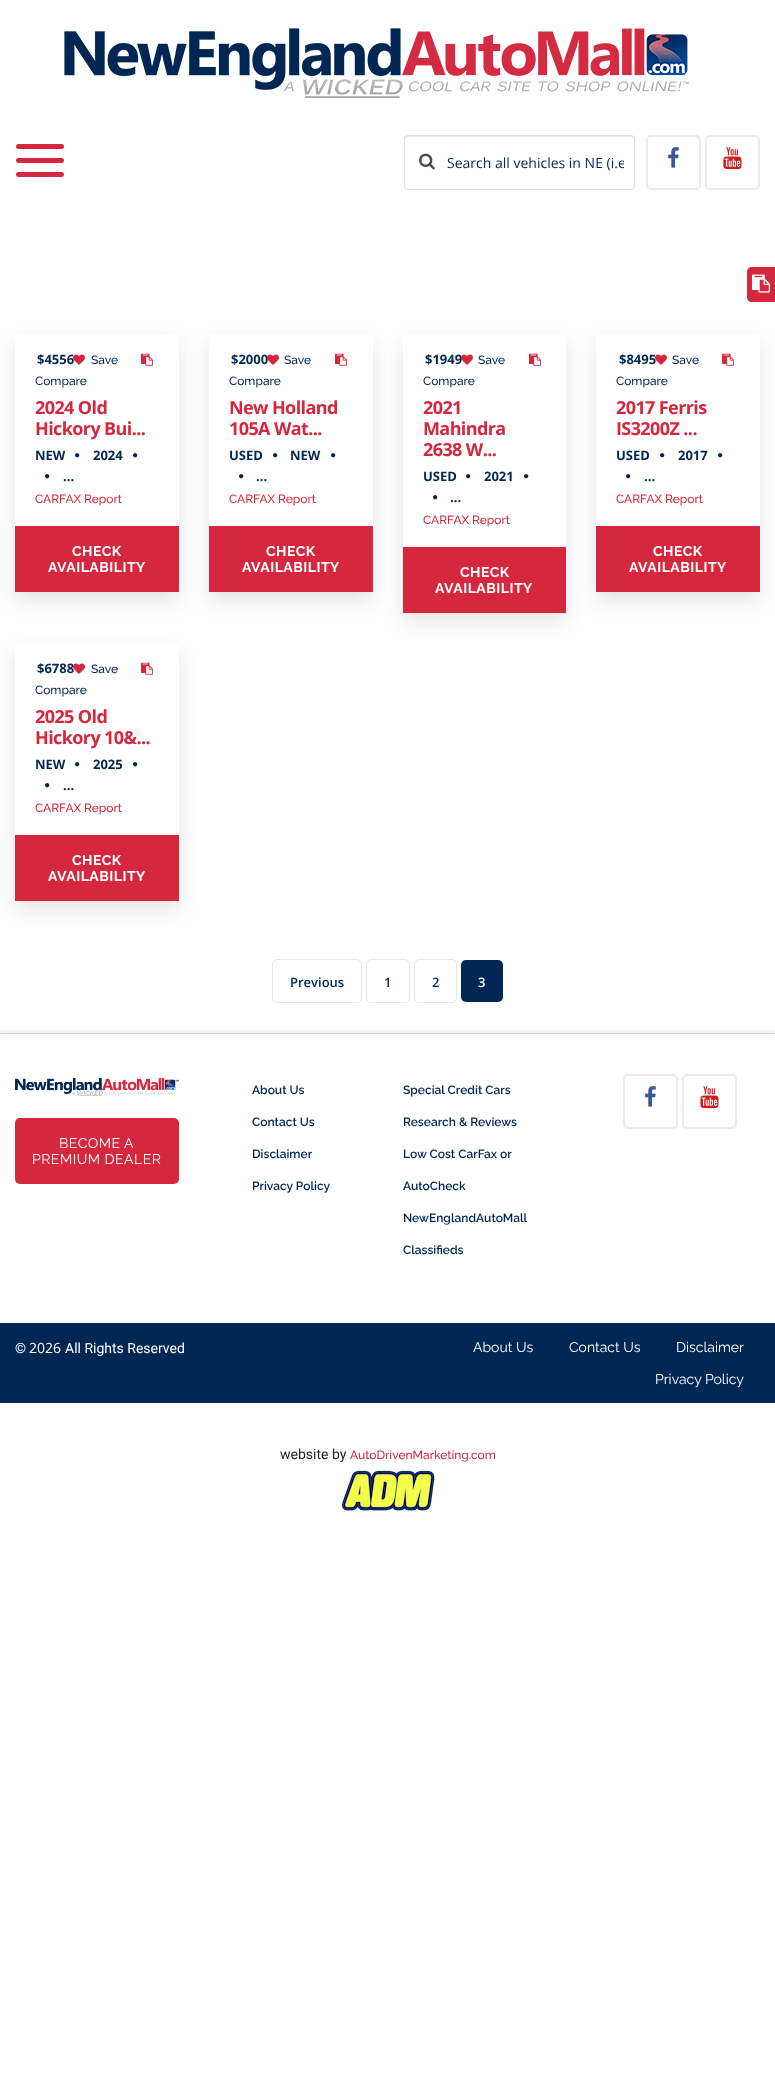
<?xml version="1.0" encoding="UTF-8"?>
<svg xmlns="http://www.w3.org/2000/svg" xmlns:xlink="http://www.w3.org/1999/xlink" width="775" height="2090">
  <defs>
    <clipPath id="clip1"><path d="M 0 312 h 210 v 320 h -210 z m 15 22 h 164 v 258 h -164 z" clip-rule="evenodd" /></clipPath>
    <clipPath id="clip2"><path d="M 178 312 h 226 v 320 h -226 z m 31 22 h 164 v 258 h -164 z" clip-rule="evenodd" /></clipPath>
    <clipPath id="clip3"><path d="M 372 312 h 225 v 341 h -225 z m 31 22 h 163 v 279 h -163 z" clip-rule="evenodd" /></clipPath>
    <clipPath id="clip4"><path d="M 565 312 h 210 v 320 h -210 z m 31 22 h 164 v 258 h -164 z" clip-rule="evenodd" /></clipPath>
    <clipPath id="clip5"><path d="M 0 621 h 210 v 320 h -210 z m 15 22 h 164 v 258 h -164 z" clip-rule="evenodd" /></clipPath>
    <clipPath id="clip6"><rect x="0" y="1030" width="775" height="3" /></clipPath>
    <clipPath id="clip7"><rect x="447" y="153" width="177" height="19" /></clipPath>
  </defs>
  <rect width="100%" height="100%" fill="#ffffff" />
  <image x="64" y="28" width="625" height="70" xlink:href="image1.png" />
  <path d="M 18.5 144 h 21.5 v 5 h -21.5 c -1.5 0 -2.5 -1 -2.5 -2.5 c 0 -1.5 1 -2.5 2.5 -2.5 z" fill="#d5283e" />
  <path d="M 40 144 h 21.5 c 1.5 0 2.5 1 2.5 2.5 c 0 1.5 -1 2.5 -2.5 2.5 h -21.5 z" fill="#d5283e" />
  <path d="M 18.5 158 h 21.5 v 5 h -21.5 c -1.5 0 -2.5 -1 -2.5 -2.5 c 0 -1.5 1 -2.5 2.5 -2.5 z" fill="#d5283e" />
  <path d="M 40 158 h 21.5 c 1.5 0 2.5 1 2.5 2.5 c 0 1.5 -1 2.5 -2.5 2.5 h -21.5 z" fill="#d5283e" />
  <path d="M 18.5 172 h 21.5 v 5 h -21.5 c -1.5 0 -2.5 -1 -2.5 -2.5 c 0 -1.5 1 -2.5 2.5 -2.5 z" fill="#d5283e" />
  <path d="M 40 172 h 21.5 c 1.5 0 2.5 1 2.5 2.5 c 0 1.5 -1 2.5 -2.5 2.5 h -21.5 z" fill="#d5283e" />
  <path d="M 408 137 h 223 c 2 0 3 1 3 3 v -1 c 0 -2 -1 -3 -3 -3 h -223 c -2 0 -3 1 -3 3 v 1 c 0 -2 1 -3 3 -3 z" fill="#ececec" />
  <rect x="404.5" y="135.5" width="230" height="54" rx="3.5" fill="none" stroke="#dddddd" />
  <image x="419" y="153" width="16" height="17" xlink:href="image2.png" />
  <rect x="647" y="136" width="53" height="53" rx="4" fill="none" stroke="#ececec" stroke-width="2" />
  <image x="668" y="147" width="11" height="21" xlink:href="image3.png" />
  <rect x="706" y="136" width="53" height="53" rx="4" fill="none" stroke="#ececec" stroke-width="2" />
  <image x="723" y="147" width="19" height="23" xlink:href="image4.png" />
  <path d="M 752 267 h 23 v 35 h -23 c -3 0 -5 -2 -5 -5 v -25 c 0 -3 2 -5 5 -5 z" fill="#d5283e" />
  <image x="752" y="274" width="18" height="19" xlink:href="image5.png" />
  <g clip-path="url(#clip1)">
    <rect x="15" y="343" width="164" height="258" fill="#000000" fill-opacity="0.1" filter="blur(10px)" />
  </g>
  <image x="141" y="353" width="12" height="13" xlink:href="image7.png" />
  <image x="75" y="453" width="5" height="5" xlink:href="image8.png" />
  <image x="133" y="453" width="5" height="5" xlink:href="image8.png" />
  <image x="45" y="474" width="5" height="5" xlink:href="image8.png" />
  <rect x="15" y="526" width="164" height="66" fill="#d5283e" />
  <g clip-path="url(#clip2)">
    <rect x="209" y="343" width="164" height="258" fill="#000000" fill-opacity="0.1" filter="blur(10px)" />
  </g>
  <image x="335" y="353" width="12" height="13" xlink:href="image7.png" />
  <image x="273" y="453" width="5" height="5" xlink:href="image8.png" />
  <image x="331" y="453" width="5" height="5" xlink:href="image8.png" />
  <image x="239" y="474" width="5" height="5" xlink:href="image8.png" />
  <rect x="209" y="526" width="164" height="66" fill="#d5283e" />
  <g clip-path="url(#clip3)">
    <rect x="403" y="343" width="163" height="279" fill="#000000" fill-opacity="0.1" filter="blur(10px)" />
  </g>
  <image x="529" y="353" width="12" height="13" xlink:href="image7.png" />
  <image x="466" y="474" width="5" height="5" xlink:href="image8.png" />
  <image x="524" y="474" width="5" height="5" xlink:href="image8.png" />
  <image x="433" y="495" width="5" height="5" xlink:href="image8.png" />
  <rect x="403" y="547" width="163" height="66" fill="#d5283e" />
  <g clip-path="url(#clip4)">
    <rect x="596" y="343" width="164" height="258" fill="#000000" fill-opacity="0.1" filter="blur(10px)" />
  </g>
  <image x="722" y="353" width="12" height="13" xlink:href="image7.png" />
  <image x="660" y="453" width="5" height="5" xlink:href="image8.png" />
  <image x="718" y="453" width="5" height="5" xlink:href="image8.png" />
  <image x="626" y="474" width="5" height="5" xlink:href="image8.png" />
  <rect x="596" y="526" width="164" height="66" fill="#d5283e" />
  <g clip-path="url(#clip5)">
    <rect x="15" y="652" width="164" height="258" fill="#000000" fill-opacity="0.1" filter="blur(10px)" />
  </g>
  <image x="141" y="662" width="12" height="13" xlink:href="image7.png" />
  <image x="75" y="762" width="5" height="5" xlink:href="image8.png" />
  <image x="133" y="762" width="5" height="5" xlink:href="image8.png" />
  <image x="45" y="783" width="5" height="5" xlink:href="image8.png" />
  <rect x="15" y="835" width="164" height="66" fill="#d5283e" />
  <rect x="272.5" y="959.5" width="89" height="43" rx="4.5" fill="none" stroke="#e6e6e6" />
  <rect x="366.5" y="959.5" width="43" height="43" rx="4.5" fill="none" stroke="#e6e6e6" />
  <rect x="414.5" y="959.5" width="42" height="43" rx="4.5" fill="none" stroke="#e6e6e6" />
  <rect x="461" y="960" width="42" height="42" rx="5" fill="#002754" />
  <g clip-path="url(#clip6)">
    <rect y="1031" width="775" height="370" fill="#000000" fill-opacity="0.07" filter="blur(2px)" />
  </g>
  <rect y="1033" width="775" height="1" fill="#d4d4d4" />
  <image x="15" y="1078" width="164" height="18" xlink:href="image13.png" />
  <rect x="15" y="1118" width="164" height="66" rx="5" fill="#d5283e" />
  <rect x="624" y="1075" width="53" height="53" rx="4" fill="none" stroke="#ececec" stroke-width="2" />
  <image x="645" y="1086" width="11" height="21" xlink:href="image3.png" />
  <rect x="683" y="1075" width="53" height="53" rx="4" fill="none" stroke="#ececec" stroke-width="2" />
  <image x="700" y="1086" width="19" height="23" xlink:href="image4.png" />
  <rect y="1323" width="775" height="80" fill="#002754" />
  <image x="341" y="1470" width="94" height="41" xlink:href="image14.png" />
  <g clip-path="url(#clip7)">
    <text x="447" y="168" style="font-family: Open Sans; font-size: 14px; fill: #002754">Search all vehicles in NE (i.e</text>
  </g>
  <text x="37" y="364" style="font-family: Open Sans; font-size: 13px; font-weight: bold; fill: #002754">$4556</text>
  <image x="73" y="354" width="12" height="11" xlink:href="image6.png" />
  <text x="91" y="364" style="font-family: Raleway; font-size: 12px; font-weight: 500; fill: #002754">Save</text>
  <text x="35" y="385" style="font-family: Raleway; font-size: 12px; font-weight: 500; fill: #002754">Compare</text>
  <text x="35" y="414" style="font-family: Open Sans; font-size: 18px; font-weight: bold; letter-spacing: -0.6px; fill: #d5283e">2024 Old</text>
  <text x="35" y="435" style="font-family: Open Sans; font-size: 18px; font-weight: bold; letter-spacing: -0.6px; fill: #d5283e">Hickory Bui...</text>
  <text x="35" y="460" style="font-family: Open Sans; font-size: 13px; font-weight: bold; fill: #002754">NEW</text>
  <text x="93" y="460" style="font-family: Open Sans; font-size: 13px; font-weight: bold; fill: #002754">2024</text>
  <text x="63" y="481" style="font-family: Open Sans; font-size: 13px; font-weight: bold; fill: #002754">...</text>
  <text x="35" y="503" style="font-family: Raleway; font-size: 12px; font-weight: 500; fill: #d5283e">CARFAX Report</text>
  <text x="72" y="556" style="font-family: Raleway; font-size: 14px; font-weight: 100; letter-spacing: 0.5px; fill: #ffffff">CHECK</text>
  <text x="48" y="572" style="font-family: Raleway; font-size: 14px; font-weight: 100; letter-spacing: 0.5px; fill: #ffffff">AVAILABILITY</text>
  <text x="231" y="364" style="font-family: Open Sans; font-size: 13px; font-weight: bold; fill: #002754">$2000</text>
  <image x="267" y="354" width="12" height="11" xlink:href="image9.png" />
  <text x="284" y="364" style="font-family: Raleway; font-size: 12px; font-weight: 500; fill: #002754">Save</text>
  <text x="229" y="385" style="font-family: Raleway; font-size: 12px; font-weight: 500; fill: #002754">Compare</text>
  <text x="229" y="414" style="font-family: Open Sans; font-size: 18px; font-weight: bold; letter-spacing: -0.6px; fill: #d5283e">New Holland</text>
  <text x="229" y="435" style="font-family: Open Sans; font-size: 18px; font-weight: bold; letter-spacing: -0.6px; fill: #d5283e">105A Wat...</text>
  <text x="229" y="460" style="font-family: Open Sans; font-size: 13px; font-weight: bold; fill: #002754">USED</text>
  <text x="290" y="460" style="font-family: Open Sans; font-size: 13px; font-weight: bold; fill: #002754">NEW</text>
  <text x="256" y="481" style="font-family: Open Sans; font-size: 13px; font-weight: bold; fill: #002754">...</text>
  <text x="229" y="503" style="font-family: Raleway; font-size: 12px; font-weight: 500; fill: #d5283e">CARFAX Report</text>
  <text x="266" y="556" style="font-family: Raleway; font-size: 14px; font-weight: 100; letter-spacing: 0.5px; fill: #ffffff">CHECK</text>
  <text x="242" y="572" style="font-family: Raleway; font-size: 14px; font-weight: 100; letter-spacing: 0.5px; fill: #ffffff">AVAILABILITY</text>
  <text x="425" y="364" style="font-family: Open Sans; font-size: 13px; font-weight: bold; fill: #002754">$1949</text>
  <image x="461" y="354" width="12" height="11" xlink:href="image10.png" />
  <text x="478" y="364" style="font-family: Raleway; font-size: 12px; font-weight: 500; fill: #002754">Save</text>
  <text x="423" y="385" style="font-family: Raleway; font-size: 12px; font-weight: 500; fill: #002754">Compare</text>
  <text x="423" y="414" style="font-family: Open Sans; font-size: 18px; font-weight: bold; letter-spacing: -0.6px; fill: #d5283e">2021</text>
  <text x="423" y="435" style="font-family: Open Sans; font-size: 18px; font-weight: bold; letter-spacing: -0.6px; fill: #d5283e">Mahindra</text>
  <text x="423" y="456" style="font-family: Open Sans; font-size: 18px; font-weight: bold; letter-spacing: -0.6px; fill: #d5283e">2638 W...</text>
  <text x="423" y="481" style="font-family: Open Sans; font-size: 13px; font-weight: bold; fill: #002754">USED</text>
  <text x="484" y="481" style="font-family: Open Sans; font-size: 13px; font-weight: bold; fill: #002754">2021</text>
  <text x="450" y="502" style="font-family: Open Sans; font-size: 13px; font-weight: bold; fill: #002754">...</text>
  <text x="423" y="524" style="font-family: Raleway; font-size: 12px; font-weight: 500; fill: #d5283e">CARFAX Report</text>
  <text x="460" y="577" style="font-family: Raleway; font-size: 14px; font-weight: 100; letter-spacing: 0.5px; fill: #ffffff">CHECK</text>
  <text x="435" y="593" style="font-family: Raleway; font-size: 14px; font-weight: 100; letter-spacing: 0.5px; fill: #ffffff">AVAILABILITY</text>
  <text x="619" y="364" style="font-family: Open Sans; font-size: 13px; font-weight: bold; fill: #002754">$8495</text>
  <image x="655" y="354" width="12" height="11" xlink:href="image11.png" />
  <text x="672" y="364" style="font-family: Raleway; font-size: 12px; font-weight: 500; fill: #002754">Save</text>
  <text x="616" y="385" style="font-family: Raleway; font-size: 12px; font-weight: 500; fill: #002754">Compare</text>
  <text x="616" y="414" style="font-family: Open Sans; font-size: 18px; font-weight: bold; letter-spacing: -0.6px; fill: #d5283e">2017 Ferris</text>
  <text x="616" y="435" style="font-family: Open Sans; font-size: 18px; font-weight: bold; letter-spacing: -0.6px; fill: #d5283e">IS3200Z ...</text>
  <text x="616" y="460" style="font-family: Open Sans; font-size: 13px; font-weight: bold; fill: #002754">USED</text>
  <text x="678" y="460" style="font-family: Open Sans; font-size: 13px; font-weight: bold; fill: #002754">2017</text>
  <text x="644" y="481" style="font-family: Open Sans; font-size: 13px; font-weight: bold; fill: #002754">...</text>
  <text x="616" y="503" style="font-family: Raleway; font-size: 12px; font-weight: 500; fill: #d5283e">CARFAX Report</text>
  <text x="653" y="556" style="font-family: Raleway; font-size: 14px; font-weight: 100; letter-spacing: 0.5px; fill: #ffffff">CHECK</text>
  <text x="629" y="572" style="font-family: Raleway; font-size: 14px; font-weight: 100; letter-spacing: 0.5px; fill: #ffffff">AVAILABILITY</text>
  <text x="37" y="673" style="font-family: Open Sans; font-size: 13px; font-weight: bold; fill: #002754">$6788</text>
  <image x="73" y="663" width="12" height="11" xlink:href="image12.png" />
  <text x="91" y="673" style="font-family: Raleway; font-size: 12px; font-weight: 500; fill: #002754">Save</text>
  <text x="35" y="694" style="font-family: Raleway; font-size: 12px; font-weight: 500; fill: #002754">Compare</text>
  <text x="35" y="723" style="font-family: Open Sans; font-size: 18px; font-weight: bold; letter-spacing: -0.6px; fill: #d5283e">2025 Old</text>
  <text x="35" y="744" style="font-family: Open Sans; font-size: 18px; font-weight: bold; letter-spacing: -0.6px; fill: #d5283e">Hickory 10&amp;...</text>
  <text x="35" y="769" style="font-family: Open Sans; font-size: 13px; font-weight: bold; fill: #002754">NEW</text>
  <text x="93" y="769" style="font-family: Open Sans; font-size: 13px; font-weight: bold; fill: #002754">2025</text>
  <text x="63" y="790" style="font-family: Open Sans; font-size: 13px; font-weight: bold; fill: #002754">...</text>
  <text x="35" y="812" style="font-family: Raleway; font-size: 12px; font-weight: 500; fill: #d5283e">CARFAX Report</text>
  <text x="72" y="865" style="font-family: Raleway; font-size: 14px; font-weight: 100; letter-spacing: 0.5px; fill: #ffffff">CHECK</text>
  <text x="48" y="881" style="font-family: Raleway; font-size: 14px; font-weight: 100; letter-spacing: 0.5px; fill: #ffffff">AVAILABILITY</text>
  <text x="290" y="987" style="font-family: Open Sans; font-size: 13px; font-weight: 600; fill: #002754">Previous</text>
  <text x="384" y="987" style="font-family: Open Sans; font-size: 13px; font-weight: 600; fill: #002754">1</text>
  <text x="432" y="987" style="font-family: Open Sans; font-size: 13px; font-weight: 600; fill: #002754">2</text>
  <text x="478" y="987" style="font-family: Open Sans; font-size: 13px; font-weight: 600; fill: #ffffff">3</text>
  <text x="59" y="1148" style="font-family: Raleway; font-size: 14px; letter-spacing: 0.5px; fill: #ffffff">BECOME A</text>
  <text x="32" y="1164" style="font-family: Raleway; font-size: 14px; letter-spacing: 0.5px; fill: #ffffff">PREMIUM DEALER</text>
  <text x="252" y="1094" style="font-family: Raleway; font-size: 12px; font-weight: 600; fill: #002754">About Us</text>
  <text x="252" y="1126" style="font-family: Raleway; font-size: 12px; font-weight: 600; fill: #002754">Contact Us</text>
  <text x="252" y="1158" style="font-family: Raleway; font-size: 12px; font-weight: 600; fill: #002754">Disclaimer</text>
  <text x="252" y="1190" style="font-family: Raleway; font-size: 12px; font-weight: 600; fill: #002754">Privacy Policy</text>
  <text x="403" y="1094" style="font-family: Raleway; font-size: 12px; font-weight: 600; fill: #002754">Special Credit Cars</text>
  <text x="403" y="1126" style="font-family: Raleway; font-size: 12px; font-weight: 600; fill: #002754">Research &amp; Reviews</text>
  <text x="403" y="1158" style="font-family: Raleway; font-size: 12px; font-weight: 600; fill: #002754">Low Cost CarFax or</text>
  <text x="403" y="1190" style="font-family: Raleway; font-size: 12px; font-weight: 600; fill: #002754">AutoCheck</text>
  <text x="403" y="1222" style="font-family: Raleway; font-size: 12px; font-weight: 600; fill: #002754">NewEnglandAutoMall</text>
  <text x="403" y="1254" style="font-family: Raleway; font-size: 12px; font-weight: 600; fill: #002754">Classifieds</text>
  <text x="15" y="1353" style="font-family: Roboto; font-size: 14px; fill: #ffffff">©</text>
  <text x="29" y="1353" style="font-family: Open Sans; font-size: 14px; fill: #ffffff">2026</text>
  <text x="65" y="1353" style="font-family: Roboto; font-size: 14px; fill: #ffffff">All Rights Reserved</text>
  <text x="473" y="1352" style="font-family: Raleway; font-size: 14px; fill: #ffffff">About Us</text>
  <text x="569" y="1352" style="font-family: Raleway; font-size: 14px; fill: #ffffff">Contact Us</text>
  <text x="676" y="1352" style="font-family: Raleway; font-size: 14px; fill: #ffffff">Disclaimer</text>
  <text x="655" y="1384" style="font-family: Raleway; font-size: 14px; fill: #ffffff">Privacy Policy</text>
  <text x="280" y="1459" style="font-family: Roboto; font-size: 14px; fill: #212529">website by</text>
  <text x="350" y="1459" style="font-family: Raleway; font-size: 12px; font-weight: 500; fill: #d5283e">AutoDrivenMarketing.com</text>
</svg>
